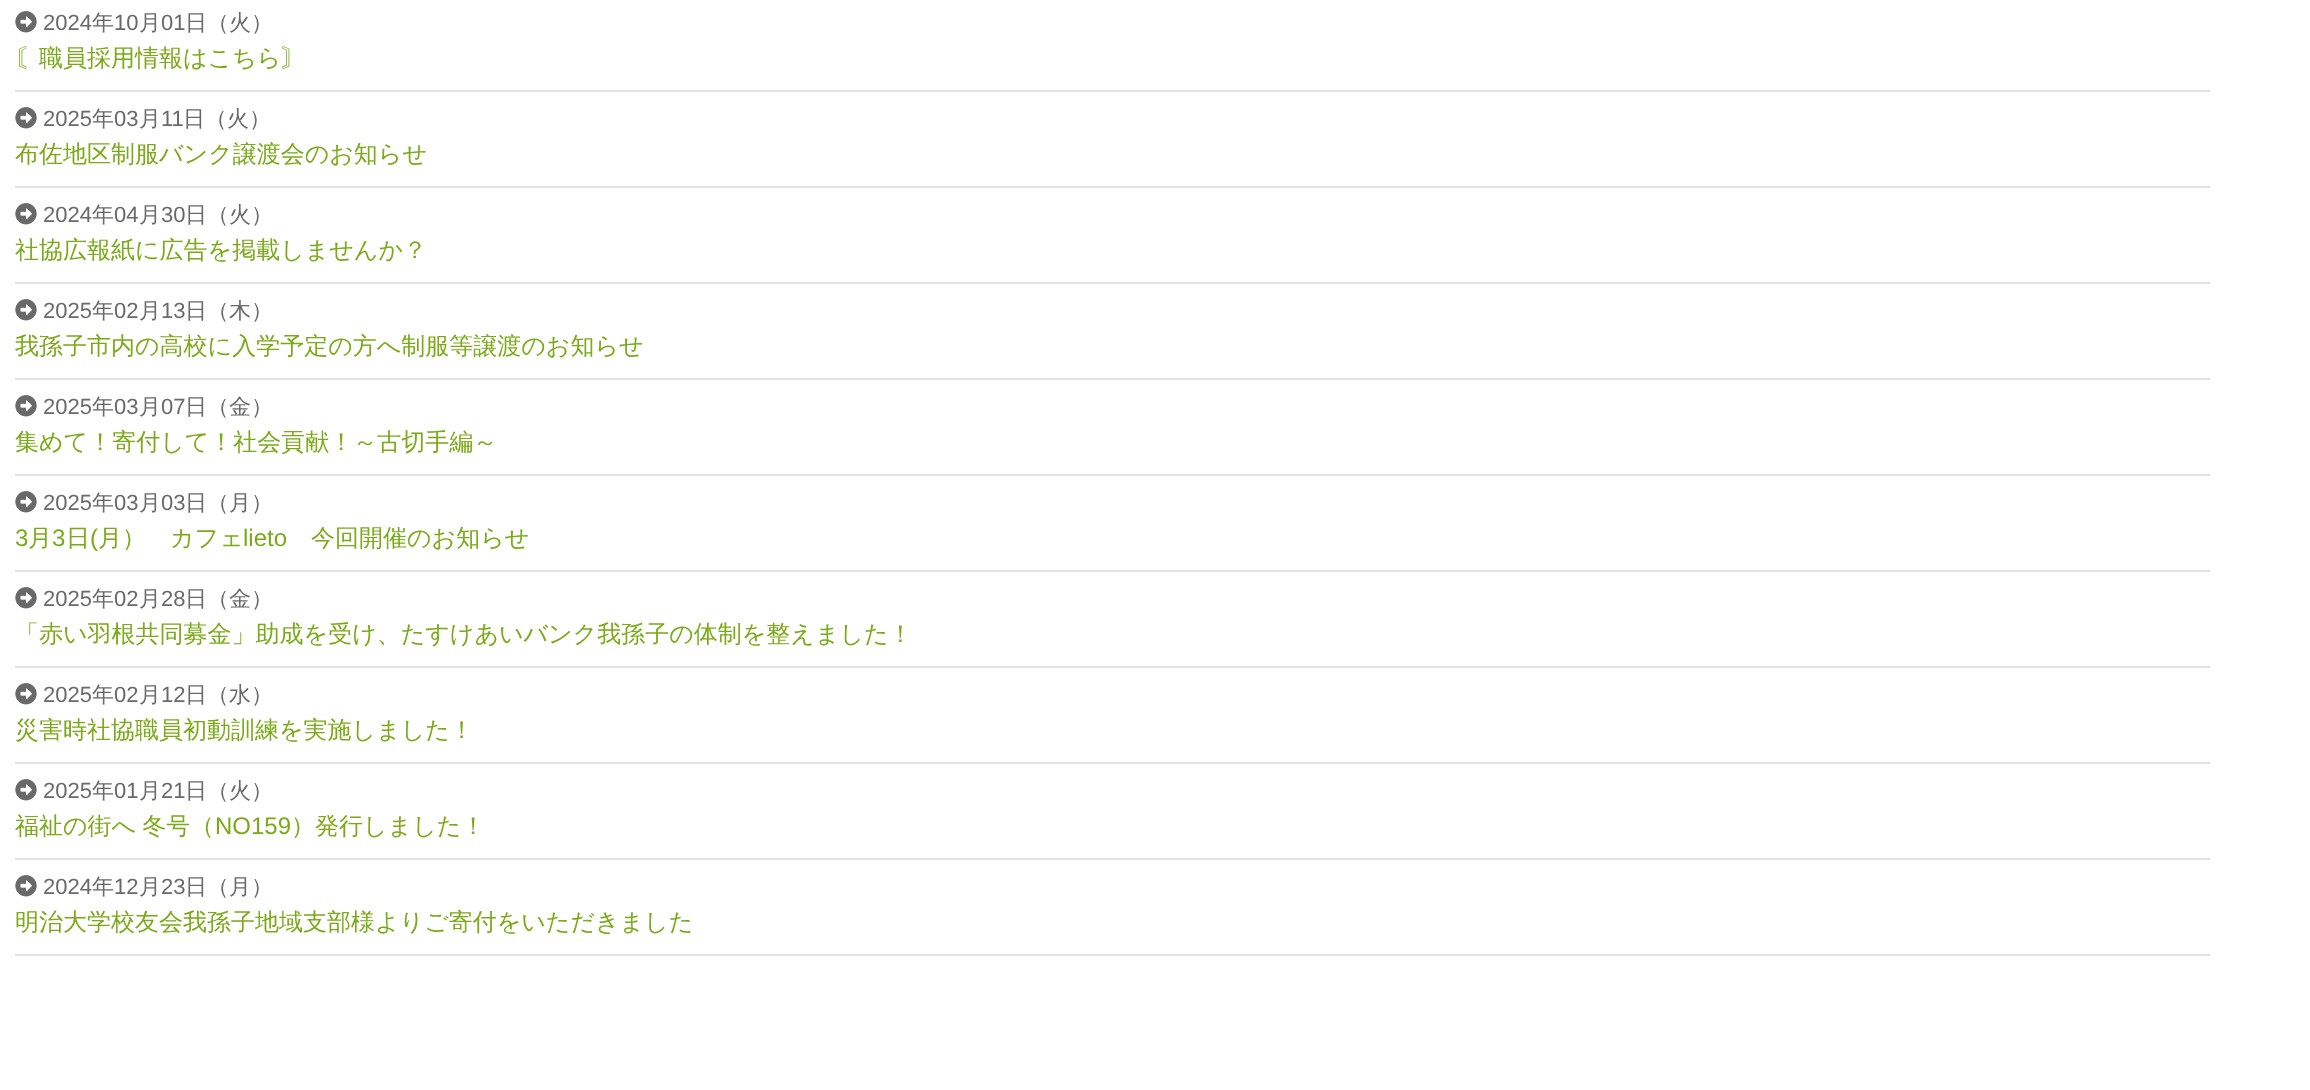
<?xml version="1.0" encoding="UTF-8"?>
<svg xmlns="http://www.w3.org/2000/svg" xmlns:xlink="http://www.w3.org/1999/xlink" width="2310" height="1090">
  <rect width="100%" height="100%" fill="#ffffff" />
  <image x="15" y="11" width="22" height="22" xlink:href="image1.png" />
  <rect x="15" y="90" width="2195" height="2" fill="#e0e0e0" />
  <image x="15" y="107" width="22" height="22" xlink:href="image1.png" />
  <rect x="15" y="186" width="2195" height="2" fill="#e0e0e0" />
  <image x="15" y="203" width="22" height="22" xlink:href="image1.png" />
  <rect x="15" y="282" width="2195" height="2" fill="#e0e0e0" />
  <image x="15" y="299" width="22" height="22" xlink:href="image1.png" />
  <rect x="15" y="378" width="2195" height="2" fill="#e0e0e0" />
  <image x="15" y="395" width="22" height="22" xlink:href="image1.png" />
  <rect x="15" y="474" width="2195" height="2" fill="#e0e0e0" />
  <image x="15" y="491" width="22" height="22" xlink:href="image1.png" />
  <rect x="15" y="570" width="2195" height="2" fill="#e0e0e0" />
  <image x="15" y="587" width="22" height="22" xlink:href="image1.png" />
  <rect x="15" y="666" width="2195" height="2" fill="#e0e0e0" />
  <image x="15" y="683" width="22" height="22" xlink:href="image1.png" />
  <rect x="15" y="762" width="2195" height="2" fill="#e0e0e0" />
  <image x="15" y="779" width="22" height="22" xlink:href="image1.png" />
  <rect x="15" y="858" width="2195" height="2" fill="#e0e0e0" />
  <image x="15" y="875" width="22" height="22" xlink:href="image1.png" />
  <rect x="15" y="954" width="2195" height="2" fill="#e0e0e0" />
  <text x="43" y="30" style="font-family: Liberation Sans; font-size: 22px; fill: #696969">2024</text>
  <text x="92" y="30" style="font-family: WenQuanYi Zen Hei; font-size: 22px; font-weight: 500; fill: #696969">年</text>
  <text x="114" y="30" style="font-family: Liberation Sans; font-size: 22px; fill: #696969">10</text>
  <text x="139" y="30" style="font-family: WenQuanYi Zen Hei; font-size: 22px; font-weight: 500; fill: #696969">月</text>
  <text x="161" y="30" style="font-family: Liberation Sans; font-size: 22px; fill: #696969">01</text>
  <text x="185" y="30" style="font-family: WenQuanYi Zen Hei; font-size: 22px; font-weight: 500; fill: #696969">日（火）</text>
  <text x="15" y="66" style="font-family: WenQuanYi Zen Hei; font-size: 24px; font-weight: 500; fill: #7aaa18">〘職員採用情報はこちら〙</text>
  <text x="43" y="126" style="font-family: Liberation Sans; font-size: 22px; fill: #696969">2025</text>
  <text x="92" y="126" style="font-family: WenQuanYi Zen Hei; font-size: 22px; font-weight: 500; fill: #696969">年</text>
  <text x="114" y="126" style="font-family: Liberation Sans; font-size: 22px; fill: #696969">03</text>
  <text x="139" y="126" style="font-family: WenQuanYi Zen Hei; font-size: 22px; font-weight: 500; fill: #696969">月</text>
  <text x="161" y="126" style="font-family: Liberation Sans; font-size: 22px; fill: #696969">11</text>
  <text x="183" y="126" style="font-family: WenQuanYi Zen Hei; font-size: 22px; font-weight: 500; fill: #696969">日（火）</text>
  <text x="15" y="162" style="font-family: WenQuanYi Zen Hei; font-size: 24px; font-weight: 500; fill: #7aaa18">布佐地区制服バンク譲渡会のお知らせ</text>
  <text x="43" y="222" style="font-family: Liberation Sans; font-size: 22px; fill: #696969">2024</text>
  <text x="92" y="222" style="font-family: WenQuanYi Zen Hei; font-size: 22px; font-weight: 500; fill: #696969">年</text>
  <text x="114" y="222" style="font-family: Liberation Sans; font-size: 22px; fill: #696969">04</text>
  <text x="139" y="222" style="font-family: WenQuanYi Zen Hei; font-size: 22px; font-weight: 500; fill: #696969">月</text>
  <text x="161" y="222" style="font-family: Liberation Sans; font-size: 22px; fill: #696969">30</text>
  <text x="185" y="222" style="font-family: WenQuanYi Zen Hei; font-size: 22px; font-weight: 500; fill: #696969">日（火）</text>
  <text x="15" y="258" style="font-family: WenQuanYi Zen Hei; font-size: 24px; font-weight: 500; fill: #7aaa18">社協広報紙に広告を掲載しませんか？</text>
  <text x="43" y="318" style="font-family: Liberation Sans; font-size: 22px; fill: #696969">2025</text>
  <text x="92" y="318" style="font-family: WenQuanYi Zen Hei; font-size: 22px; font-weight: 500; fill: #696969">年</text>
  <text x="114" y="318" style="font-family: Liberation Sans; font-size: 22px; fill: #696969">02</text>
  <text x="139" y="318" style="font-family: WenQuanYi Zen Hei; font-size: 22px; font-weight: 500; fill: #696969">月</text>
  <text x="161" y="318" style="font-family: Liberation Sans; font-size: 22px; fill: #696969">13</text>
  <text x="185" y="318" style="font-family: WenQuanYi Zen Hei; font-size: 22px; font-weight: 500; fill: #696969">日（木）</text>
  <text x="15" y="354" style="font-family: WenQuanYi Zen Hei; font-size: 24px; font-weight: 500; fill: #7aaa18">我孫子市内の高校に入学予定の方へ制服等譲渡のお知らせ</text>
  <text x="43" y="414" style="font-family: Liberation Sans; font-size: 22px; fill: #696969">2025</text>
  <text x="92" y="414" style="font-family: WenQuanYi Zen Hei; font-size: 22px; font-weight: 500; fill: #696969">年</text>
  <text x="114" y="414" style="font-family: Liberation Sans; font-size: 22px; fill: #696969">03</text>
  <text x="139" y="414" style="font-family: WenQuanYi Zen Hei; font-size: 22px; font-weight: 500; fill: #696969">月</text>
  <text x="161" y="414" style="font-family: Liberation Sans; font-size: 22px; fill: #696969">07</text>
  <text x="185" y="414" style="font-family: WenQuanYi Zen Hei; font-size: 22px; font-weight: 500; fill: #696969">日（金）</text>
  <text x="15" y="450" style="font-family: WenQuanYi Zen Hei; font-size: 24px; font-weight: 500; fill: #7aaa18">集めて！寄付して！社会貢献！～古切手編～</text>
  <text x="43" y="510" style="font-family: Liberation Sans; font-size: 22px; fill: #696969">2025</text>
  <text x="92" y="510" style="font-family: WenQuanYi Zen Hei; font-size: 22px; font-weight: 500; fill: #696969">年</text>
  <text x="114" y="510" style="font-family: Liberation Sans; font-size: 22px; fill: #696969">03</text>
  <text x="139" y="510" style="font-family: WenQuanYi Zen Hei; font-size: 22px; font-weight: 500; fill: #696969">月</text>
  <text x="161" y="510" style="font-family: Liberation Sans; font-size: 22px; fill: #696969">03</text>
  <text x="185" y="510" style="font-family: WenQuanYi Zen Hei; font-size: 22px; font-weight: 500; fill: #696969">日（月）</text>
  <text x="15" y="546" style="font-family: Liberation Sans; font-size: 24px; fill: #7aaa18">3</text>
  <text x="28" y="546" style="font-family: WenQuanYi Zen Hei; font-size: 24px; font-weight: 500; fill: #7aaa18">月</text>
  <text x="52" y="546" style="font-family: Liberation Sans; font-size: 24px; fill: #7aaa18">3</text>
  <text x="66" y="546" style="font-family: WenQuanYi Zen Hei; font-size: 24px; font-weight: 500; fill: #7aaa18">日</text>
  <text x="90" y="546" style="font-family: Liberation Sans; font-size: 24px; fill: #7aaa18">(</text>
  <text x="98" y="546" style="font-family: WenQuanYi Zen Hei; font-size: 24px; font-weight: 500; fill: #7aaa18">月）　カフェ</text>
  <text x="243" y="546" style="font-family: Liberation Sans; font-size: 24px; fill: #7aaa18">lieto</text>
  <text x="311" y="546" style="font-family: WenQuanYi Zen Hei; font-size: 24px; font-weight: 500; fill: #7aaa18">今回開催のお知らせ</text>
  <text x="43" y="606" style="font-family: Liberation Sans; font-size: 22px; fill: #696969">2025</text>
  <text x="92" y="606" style="font-family: WenQuanYi Zen Hei; font-size: 22px; font-weight: 500; fill: #696969">年</text>
  <text x="114" y="606" style="font-family: Liberation Sans; font-size: 22px; fill: #696969">02</text>
  <text x="139" y="606" style="font-family: WenQuanYi Zen Hei; font-size: 22px; font-weight: 500; fill: #696969">月</text>
  <text x="161" y="606" style="font-family: Liberation Sans; font-size: 22px; fill: #696969">28</text>
  <text x="185" y="606" style="font-family: WenQuanYi Zen Hei; font-size: 22px; font-weight: 500; fill: #696969">日（金）</text>
  <text x="15" y="642" style="font-family: WenQuanYi Zen Hei; font-size: 24px; font-weight: 500; fill: #7aaa18">「赤い羽根共同募金」助成を受け、たすけあいバンク我孫子の体制を整えました！</text>
  <text x="43" y="702" style="font-family: Liberation Sans; font-size: 22px; fill: #696969">2025</text>
  <text x="92" y="702" style="font-family: WenQuanYi Zen Hei; font-size: 22px; font-weight: 500; fill: #696969">年</text>
  <text x="114" y="702" style="font-family: Liberation Sans; font-size: 22px; fill: #696969">02</text>
  <text x="139" y="702" style="font-family: WenQuanYi Zen Hei; font-size: 22px; font-weight: 500; fill: #696969">月</text>
  <text x="161" y="702" style="font-family: Liberation Sans; font-size: 22px; fill: #696969">12</text>
  <text x="185" y="702" style="font-family: WenQuanYi Zen Hei; font-size: 22px; font-weight: 500; fill: #696969">日（水）</text>
  <text x="15" y="738" style="font-family: WenQuanYi Zen Hei; font-size: 24px; font-weight: 500; fill: #7aaa18">災害時社協職員初動訓練を実施しました！</text>
  <text x="43" y="798" style="font-family: Liberation Sans; font-size: 22px; fill: #696969">2025</text>
  <text x="92" y="798" style="font-family: WenQuanYi Zen Hei; font-size: 22px; font-weight: 500; fill: #696969">年</text>
  <text x="114" y="798" style="font-family: Liberation Sans; font-size: 22px; fill: #696969">01</text>
  <text x="139" y="798" style="font-family: WenQuanYi Zen Hei; font-size: 22px; font-weight: 500; fill: #696969">月</text>
  <text x="161" y="798" style="font-family: Liberation Sans; font-size: 22px; fill: #696969">21</text>
  <text x="185" y="798" style="font-family: WenQuanYi Zen Hei; font-size: 22px; font-weight: 500; fill: #696969">日（火）</text>
  <text x="15" y="834" word-spacing="-1" style="font-family: WenQuanYi Zen Hei; font-size: 24px; font-weight: 500; fill: #7aaa18">福祉の街へ 冬号（</text>
  <text x="215" y="834" style="font-family: Liberation Sans; font-size: 24px; fill: #7aaa18">NO159</text>
  <text x="291" y="834" style="font-family: WenQuanYi Zen Hei; font-size: 24px; font-weight: 500; fill: #7aaa18">）発行しました！</text>
  <text x="43" y="894" style="font-family: Liberation Sans; font-size: 22px; fill: #696969">2024</text>
  <text x="92" y="894" style="font-family: WenQuanYi Zen Hei; font-size: 22px; font-weight: 500; fill: #696969">年</text>
  <text x="114" y="894" style="font-family: Liberation Sans; font-size: 22px; fill: #696969">12</text>
  <text x="139" y="894" style="font-family: WenQuanYi Zen Hei; font-size: 22px; font-weight: 500; fill: #696969">月</text>
  <text x="161" y="894" style="font-family: Liberation Sans; font-size: 22px; fill: #696969">23</text>
  <text x="185" y="894" style="font-family: WenQuanYi Zen Hei; font-size: 22px; font-weight: 500; fill: #696969">日（月）</text>
  <text x="15" y="930" style="font-family: WenQuanYi Zen Hei; font-size: 24px; font-weight: 500; fill: #7aaa18">明治大学校友会我孫子地域支部様よりご寄付をいただきました</text>
</svg>
